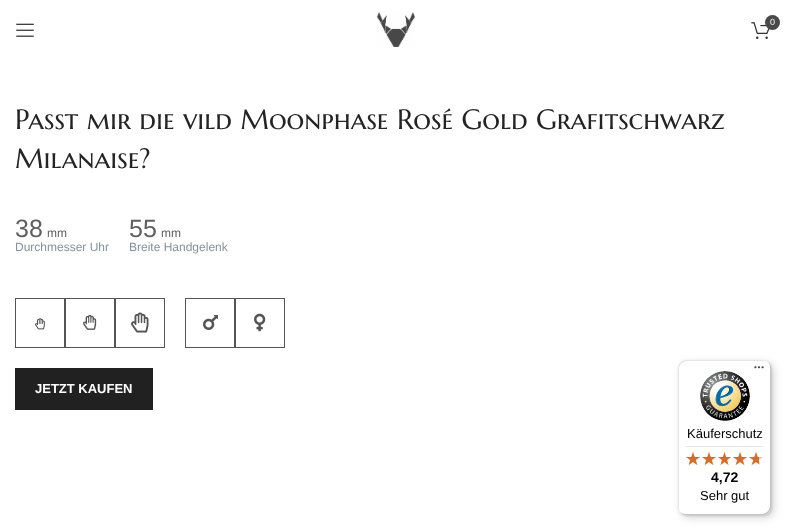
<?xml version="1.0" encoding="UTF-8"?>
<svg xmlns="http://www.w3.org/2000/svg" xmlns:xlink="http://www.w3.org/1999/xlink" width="791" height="529">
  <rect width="100%" height="100%" fill="#ffffff" />
  <image x="376" y="12" width="39" height="35" xlink:href="image1.png" />
  <image x="751" y="22" width="19" height="17" xlink:href="image2.png" />
  <circle cx="772.5" cy="22.5" r="7.5" fill="#494949" />
  <image x="16" y="23" width="18" height="14" xlink:href="image3.png" />
  <rect x="15.5" y="298.5" width="49" height="49" fill="none" stroke="#555555" />
  <image x="35" y="318" width="10" height="12" xlink:href="image4.png" />
  <rect x="65.5" y="298.5" width="49" height="49" fill="none" stroke="#555555" />
  <image x="83" y="314" width="14" height="16" xlink:href="image5.png" />
  <rect x="115.5" y="298.5" width="49" height="49" fill="none" stroke="#555555" />
  <image x="131" y="312" width="18" height="21" xlink:href="image6.png" />
  <rect x="185.5" y="298.5" width="49" height="49" fill="none" stroke="#555555" />
  <image x="203" y="315" width="15" height="15" xlink:href="image7.png" />
  <rect x="235.5" y="298.5" width="49" height="49" fill="none" stroke="#555555" />
  <image x="254" y="313" width="12" height="19" xlink:href="image8.png" />
  <rect x="15" y="368" width="138" height="42" fill="#212121" />
  <rect x="681" y="363" width="93" height="155" rx="8" fill="#000000" fill-opacity="0.15" filter="blur(4px)" />
  <rect x="679" y="361" width="93" height="155" rx="8" fill="#000000" fill-opacity="0.15" filter="blur(1px)" />
  <rect x="678" y="360" width="93" height="155" rx="8" fill="#ffffff" />
  <path d="M 687 361 h 77 c 2 0 4 1 6 3 c -2 -2 -4 -4 -7 -4 h -77 c -4 0 -8 4 -8 8 v 139 c 0 3 2 5 4 7 c -2 -2 -3 -4 -3 -6 v -139 c 0 -4 4 -8 8 -8 z" fill="#e5e5e5" />
  <path d="M 679 511 c 2 2 4 4 7 4 h 77 c 4 0 8 -4 8 -8 v -139 c 0 -3 -2 -5 -4 -7 c 2 2 3 4 3 6 v 139 c 0 4 -4 8 -8 8 h -77 c -2 0 -4 -1 -6 -3 z" fill="#cccccc" />
  <path d="M 680 512 c 1 2 4 3 6 3 h 77 c 4 0 8 -4 8 -8 v -139 c 0 -2 -1 -5 -3 -6 c 1 1 2 3 2 5 v 139 c 0 5 -3 8 -8 8 h -77 c -2 0 -4 -1 -5 -2 z" fill="#323232" fill-opacity="0.2" />
  <path d="M 770 368 c 0 -5 -3 -8 -8 -8 h 1 c 4 0 8 4 8 8 v 139 c 0 4 -4 8 -8 8 h -77 c -4 0 -8 -4 -8 -8 v -1 c 0 5 3 8 8 8 h 76 c 5 0 8 -3 8 -8 z" fill="#ffffff" fill-opacity="0.3" />
  <image x="754" y="366" width="10" height="3" xlink:href="image9.png" />
  <image x="700" y="371" width="50" height="50" xlink:href="image10.png" />
  <rect x="686" y="446" width="77" height="1" fill="#e5e5e5" />
  <image x="686" y="452" width="14" height="13" xlink:href="image11.png" />
  <image x="702" y="452" width="14" height="13" xlink:href="image11.png" />
  <image x="718" y="452" width="13" height="13" xlink:href="image12.png" />
  <image x="733" y="452" width="14" height="13" xlink:href="image11.png" />
  <image x="749" y="452" width="14" height="13" xlink:href="image11.png" />
  <image x="686" y="452" width="14" height="13" xlink:href="image13.png" />
  <image x="702" y="452" width="14" height="13" xlink:href="image13.png" />
  <image x="718" y="452" width="13" height="13" xlink:href="image14.png" />
  <image x="733" y="452" width="14" height="13" xlink:href="image13.png" />
  <image x="749" y="452" width="10" height="13" xlink:href="image15.png" />
  <text x="770" y="25" style="font-family: Liberation Sans; font-size: 9px; fill: #ffffff">0</text>
  <text x="15" y="129" style="font-family: Marcellus SC; font-size: 28px; fill: #242424">Passt mir die vild Moonphase Rosé Gold Grafitschwarz</text>
  <text x="15" y="168" style="font-family: Marcellus SC; font-size: 28px; fill: #242424">Milanaise?</text>
  <text x="15" y="237" style="font-family: Liberation Sans; font-size: 25px; fill: #616060">38</text>
  <text x="47" y="237" style="font-family: Liberation Sans; font-size: 12px; fill: #616060">mm</text>
  <text x="15" y="251" style="font-family: Liberation Sans; font-size: 12px; fill: #82949c">Durchmesser Uhr</text>
  <text x="129" y="237" style="font-family: Liberation Sans; font-size: 25px; fill: #616060">55</text>
  <text x="161" y="237" style="font-family: Liberation Sans; font-size: 12px; fill: #616060">mm</text>
  <text x="129" y="251" style="font-family: Liberation Sans; font-size: 12px; fill: #82949c">Breite Handgelenk</text>
  <text x="35" y="393" style="font-family: Liberation Sans; font-size: 13px; font-weight: bold; fill: #ffffff">JETZT KAUFEN</text>
  <text x="687" y="438" style="font-family: Liberation Sans; font-size: 13px; fill: #000000">Käuferschutz</text>
  <text x="711" y="482" style="font-family: Liberation Sans; font-size: 14px; font-weight: bold; fill: #000000">4,72</text>
  <text x="700" y="500" style="font-family: Liberation Sans; font-size: 13px; fill: #000000">Sehr gut</text>
</svg>
